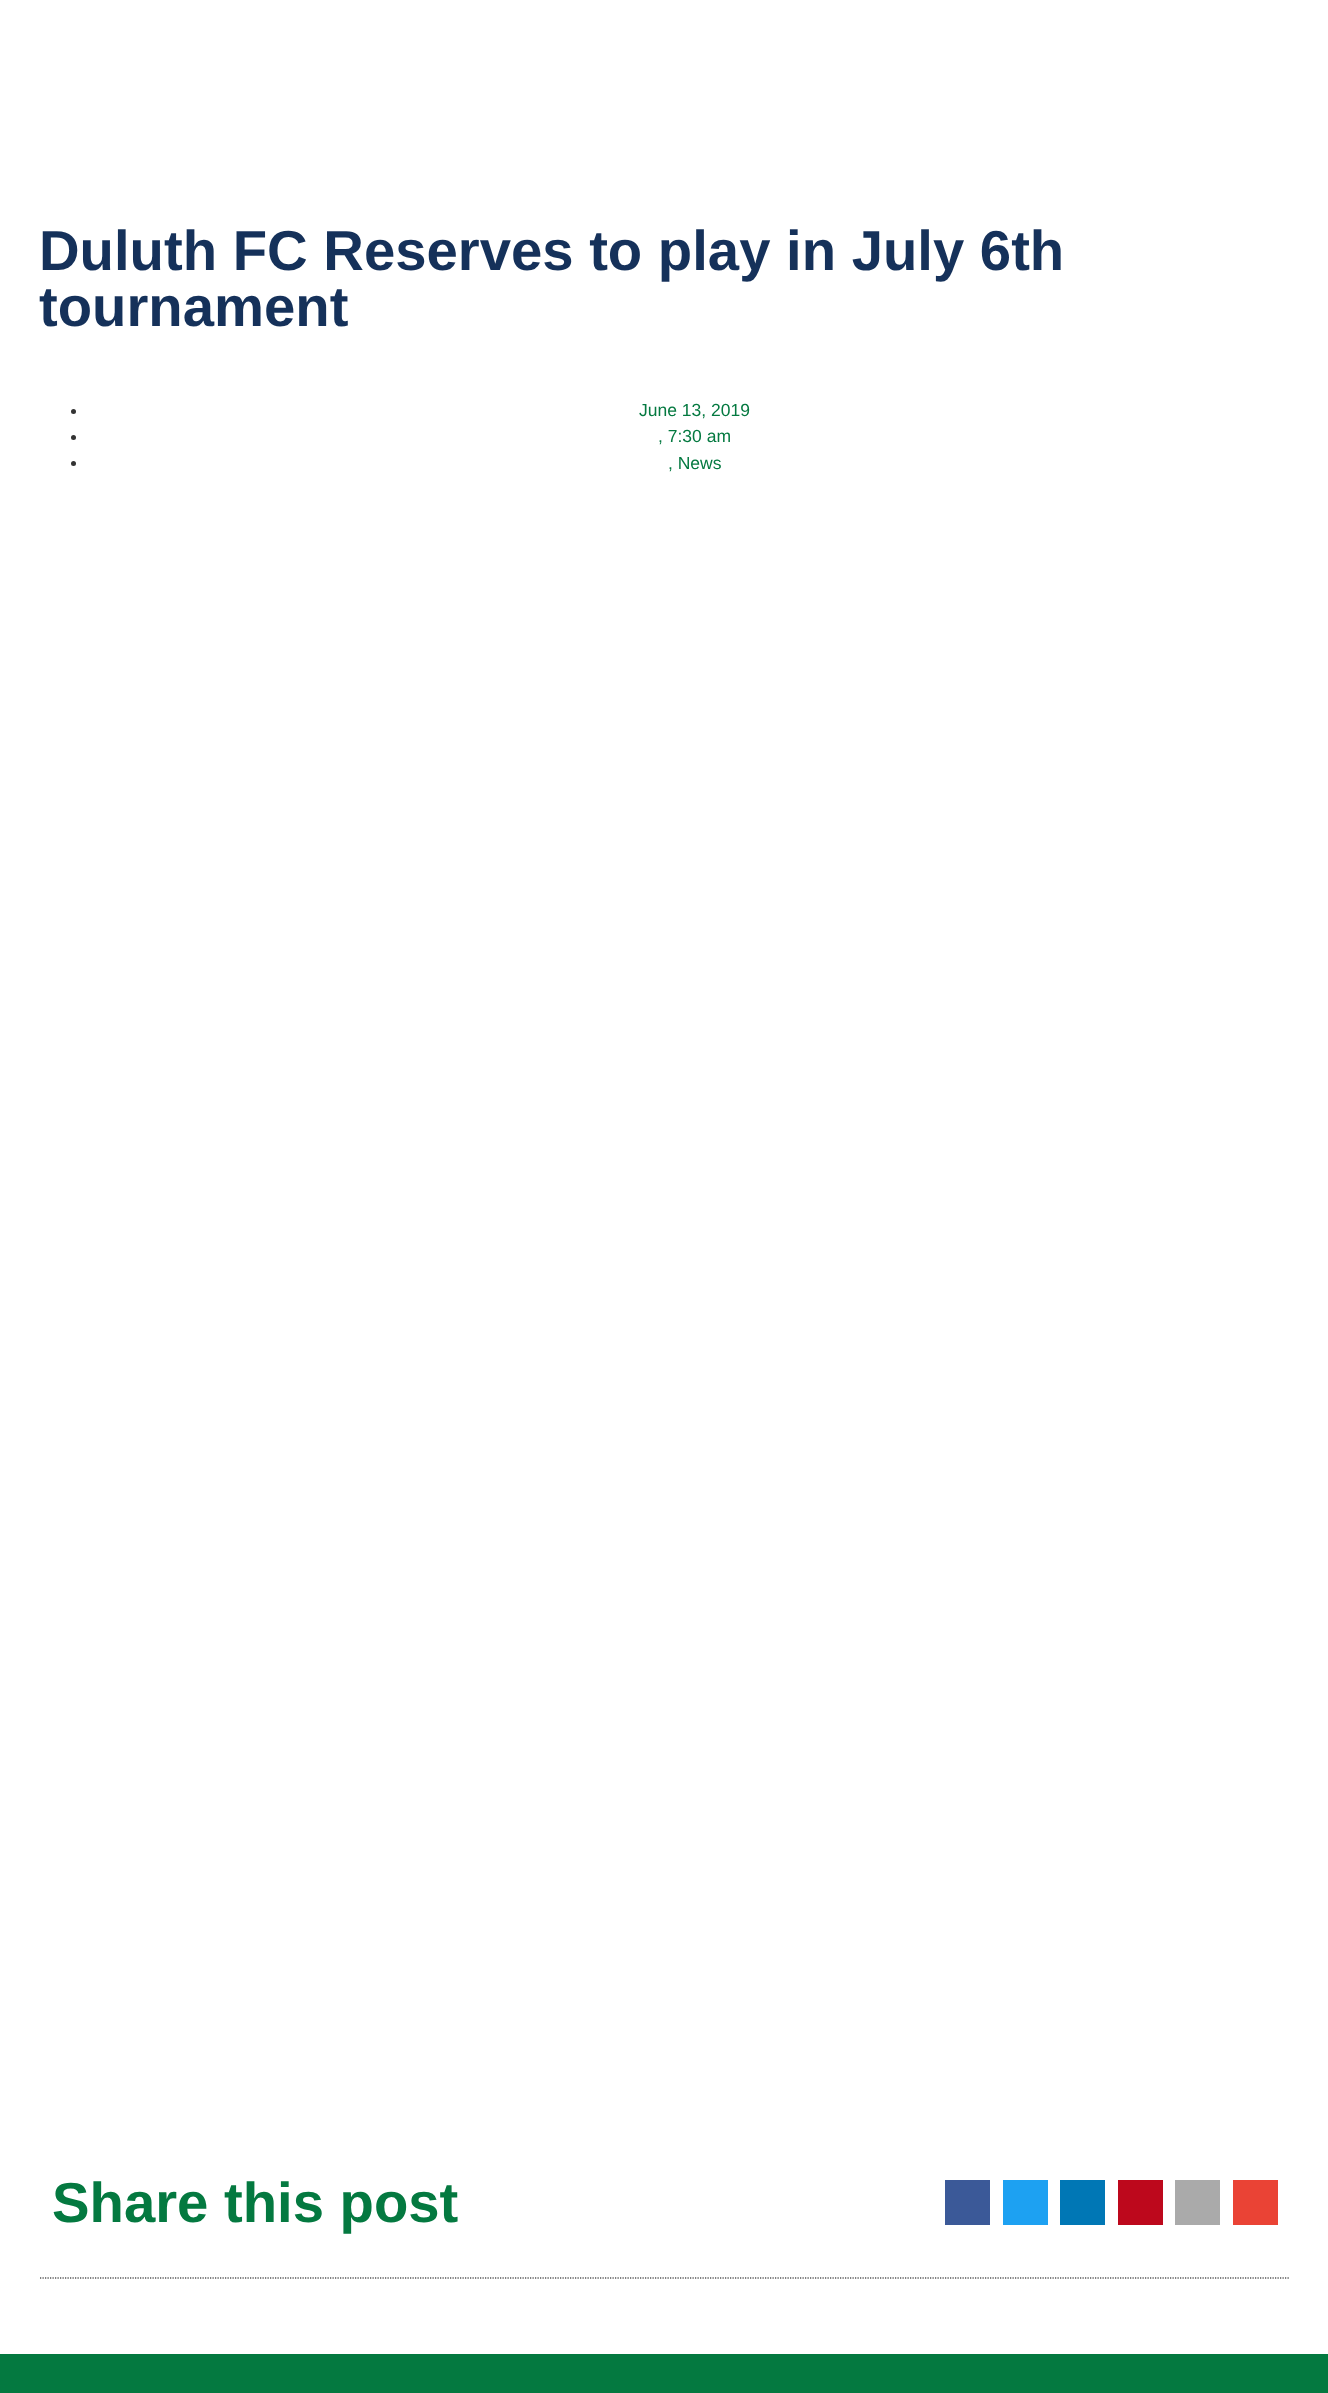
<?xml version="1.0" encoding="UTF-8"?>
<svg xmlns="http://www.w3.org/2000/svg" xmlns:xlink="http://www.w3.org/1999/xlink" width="1328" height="2393">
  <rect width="100%" height="100%" fill="#ffffff" />
  <circle cx="73.5" cy="411.5" r="2.5" fill="#333333" />
  <circle cx="73.5" cy="437.5" r="2.5" fill="#333333" />
  <circle cx="73.5" cy="463.5" r="2.5" fill="#333333" />
  <rect x="945" y="2180" width="45" height="45" fill="#3b5998" />
  <rect x="1003" y="2180" width="45" height="45" fill="#1da1f2" />
  <rect x="1060" y="2180" width="45" height="45" fill="#0077b5" />
  <rect x="1118" y="2180" width="45" height="45" fill="#bd081c" />
  <rect x="1175" y="2180" width="45" height="45" fill="#aaaaaa" />
  <rect x="1233" y="2180" width="45" height="45" fill="#ea4335" />
  <path d="M 40 2278 h 1250" fill="none" stroke="#000000" stroke-width="1.2" stroke-dasharray="1.25 1.25" />
  <rect y="2354" width="1328" height="39" fill="#047940" />
  <text x="39" y="270" style="font-family: Liberation Sans; font-size: 56.25px; font-weight: bold; fill: #15315a">Duluth FC Reserves to play in July 6th</text>
  <text x="39" y="326" style="font-family: Liberation Sans; font-size: 56.25px; font-weight: bold; fill: #15315a">tournament</text>
  <text x="639" y="416" style="font-family: Liberation Sans; font-size: 17.5px; fill: #047940">June 13, 2019</text>
  <text x="658" y="442" style="font-family: Liberation Sans; font-size: 17.5px; fill: #047940">, 7:30 am</text>
  <text x="668" y="469" style="font-family: Liberation Sans; font-size: 17.5px; fill: #047940">, News</text>
  <text x="52" y="2222" style="font-family: Liberation Sans; font-size: 56.25px; font-weight: bold; fill: #047940">Share this post</text>
</svg>
